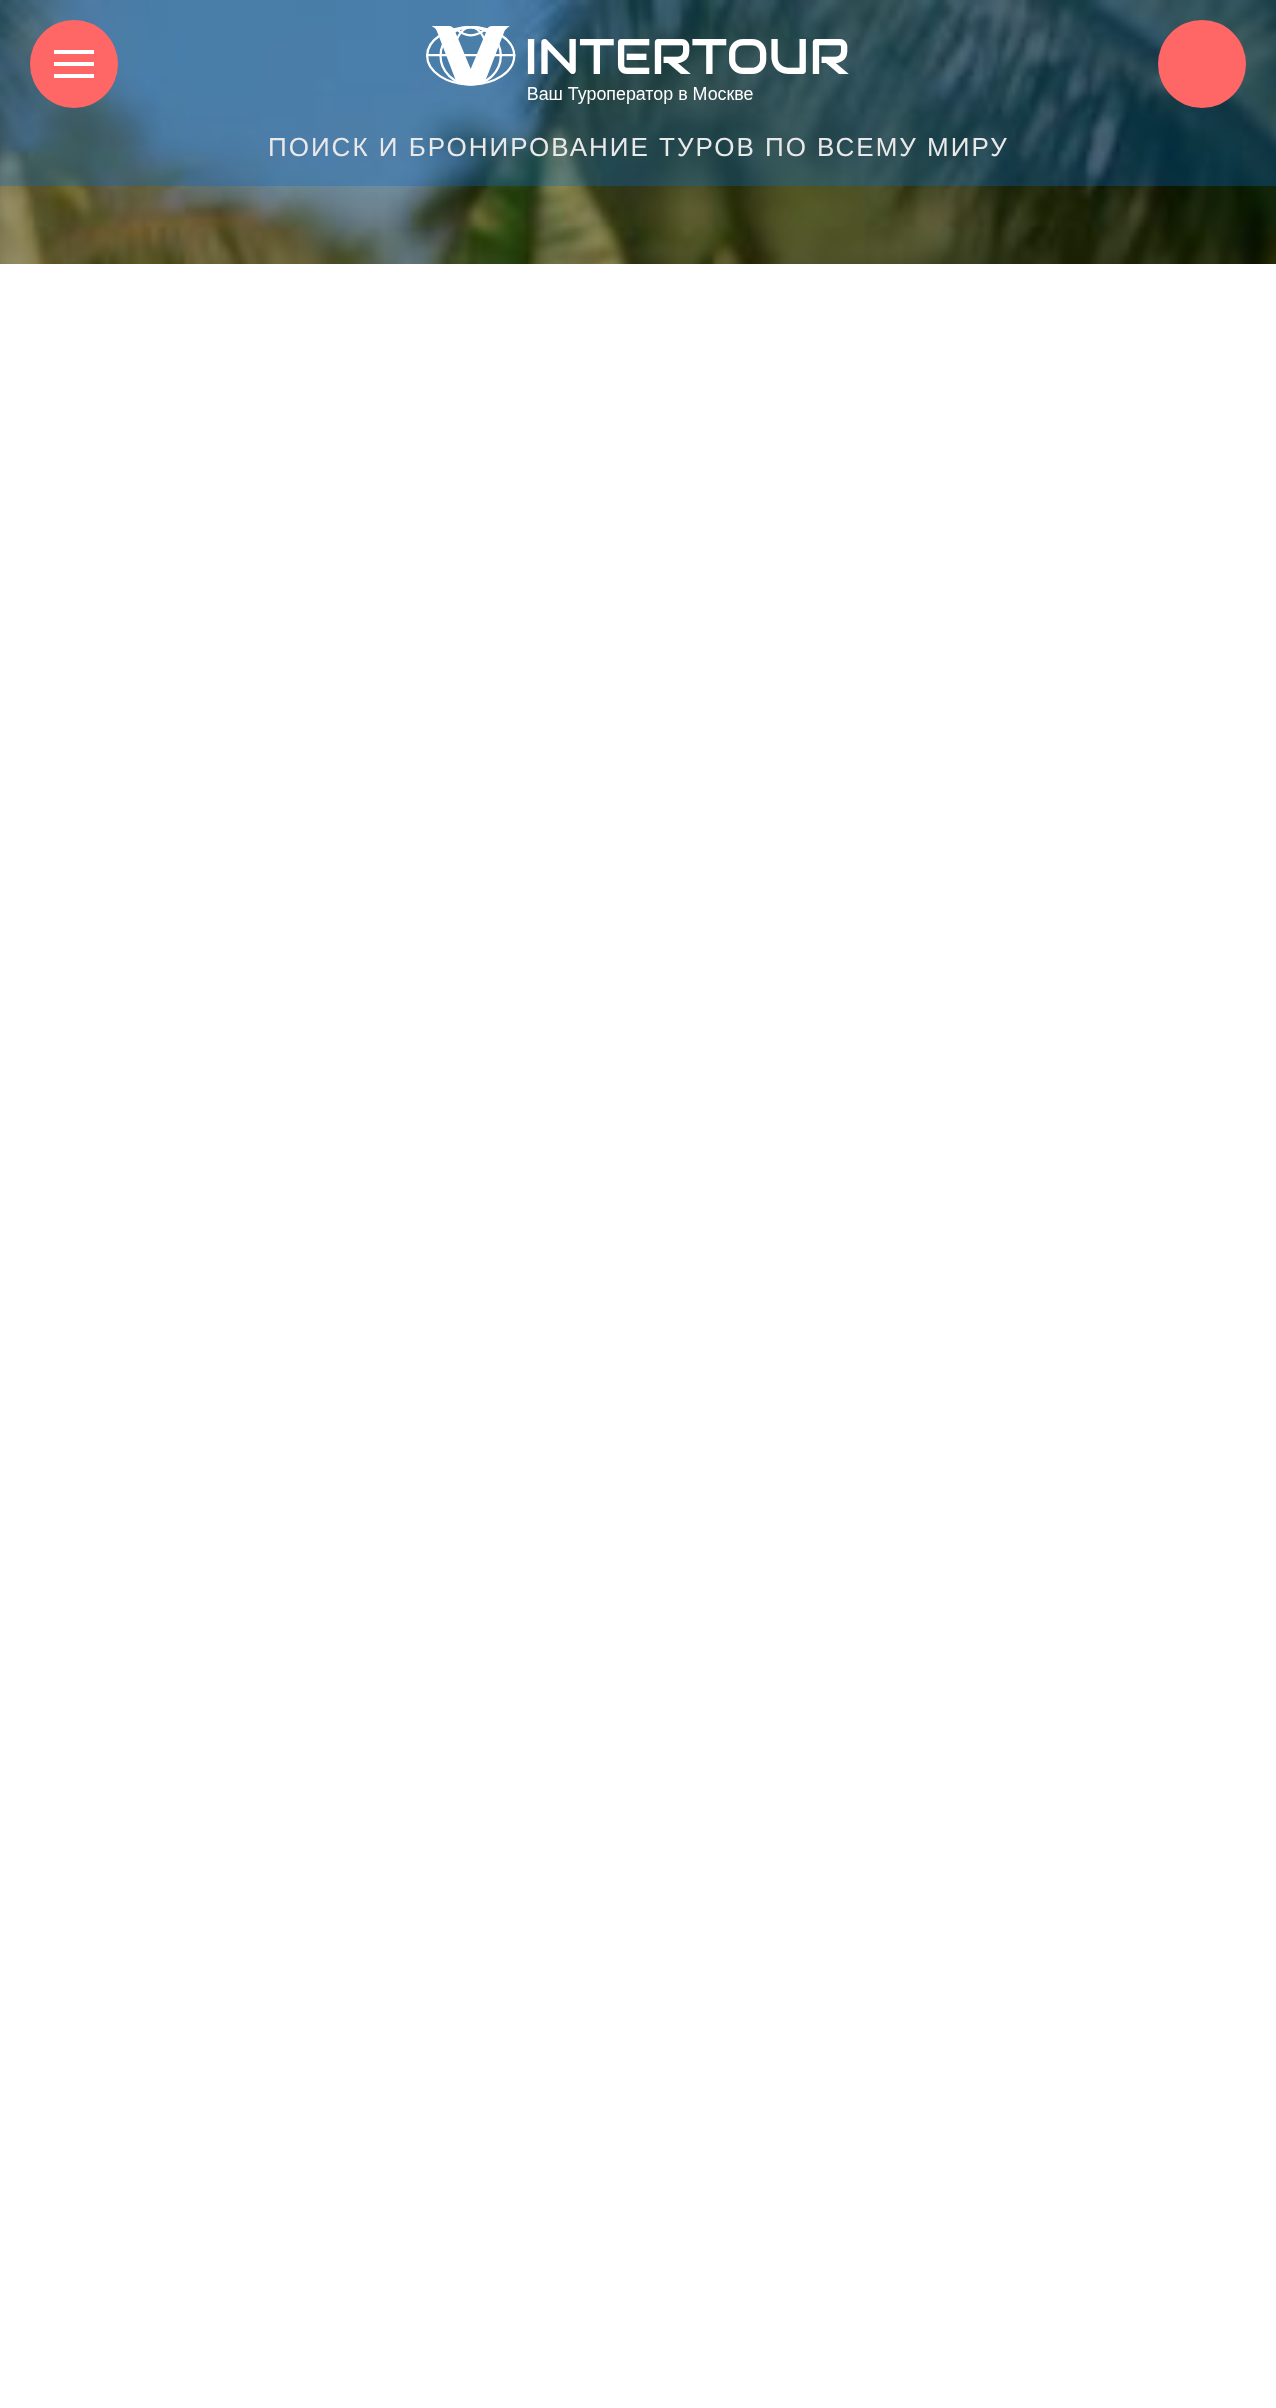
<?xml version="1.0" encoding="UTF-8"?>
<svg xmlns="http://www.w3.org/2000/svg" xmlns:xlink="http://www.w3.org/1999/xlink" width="1276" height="2408">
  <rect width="100%" height="100%" fill="#ffffff" />
  <image x="0" y="0" width="1276" height="264" xlink:href="image1.png" />
  <rect width="1276" height="186" fill="#0066cc" fill-opacity="0.3" />
  <circle cx="74" cy="64" r="44" fill="#ff6666" />
  <rect x="54" y="50" width="40" height="4" fill="#ffffff" />
  <rect x="54" y="62" width="40" height="4" fill="#ffffff" />
  <rect x="54" y="74" width="40" height="4" fill="#ffffff" />
  <image x="426" y="26" width="423" height="78" xlink:href="image2.png" />
  <circle cx="1202" cy="64" r="44" fill="#ff6666" />
  <text x="268" y="156" style="font-family: Liberation Sans; font-size: 26px; letter-spacing: 2px; fill: #e9e9e9">ПОИСК И БРОНИРОВАНИЕ ТУРОВ ПО ВСЕМУ МИРУ</text>
</svg>
